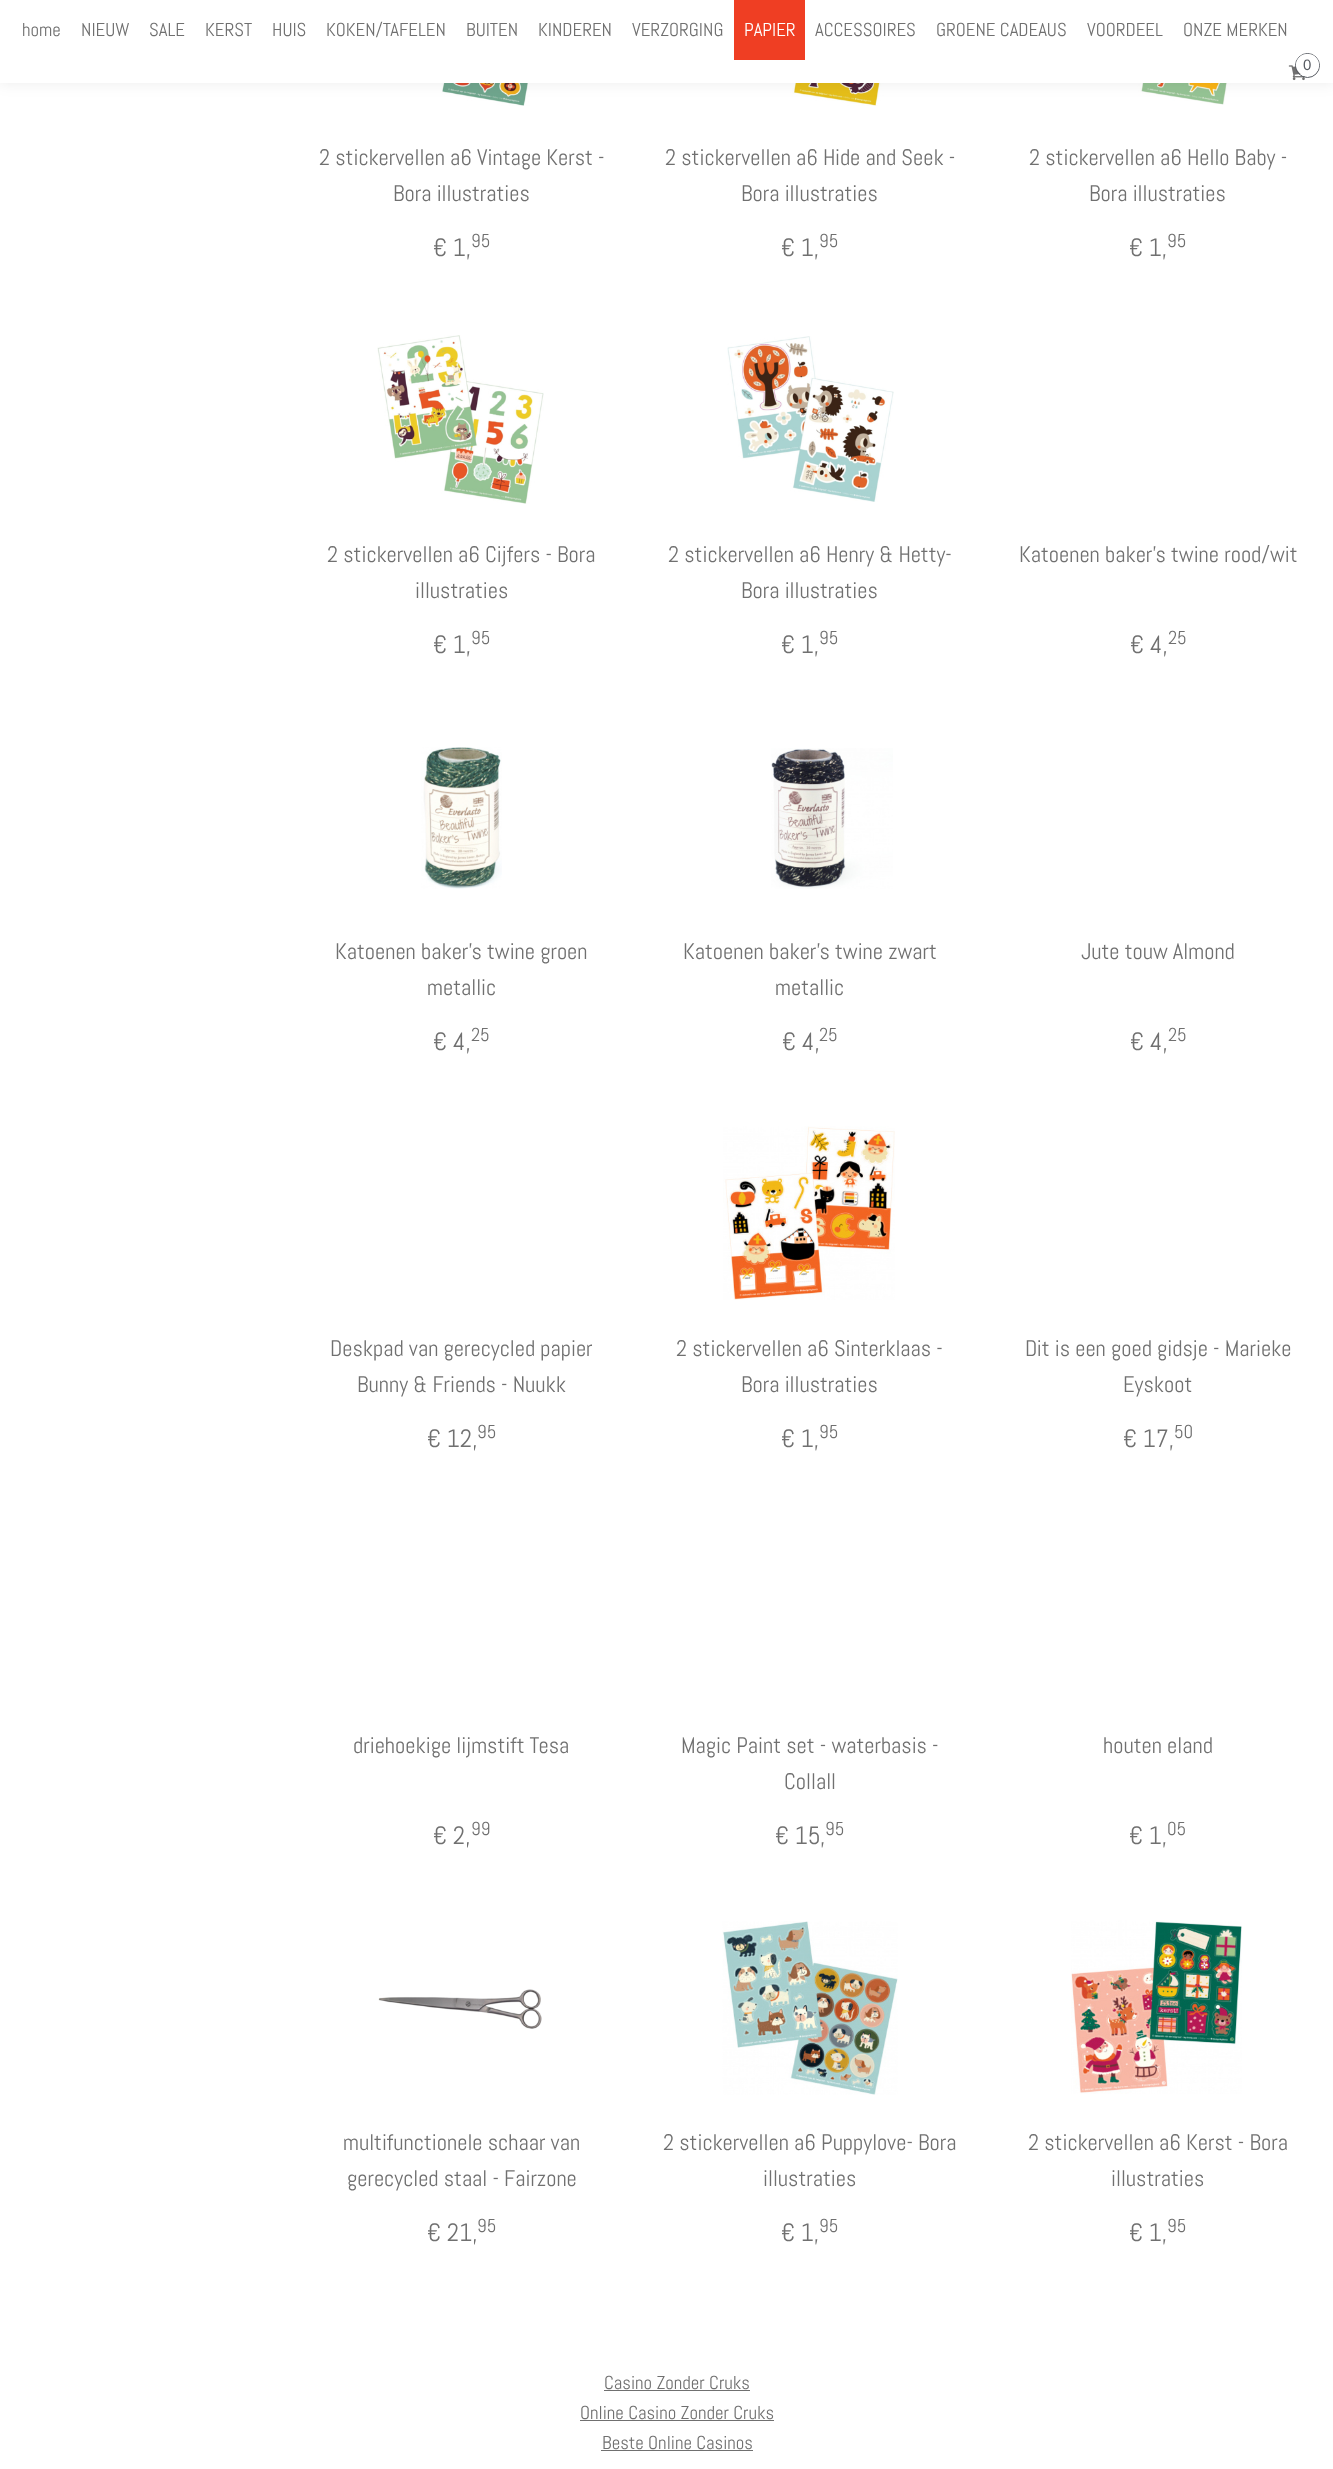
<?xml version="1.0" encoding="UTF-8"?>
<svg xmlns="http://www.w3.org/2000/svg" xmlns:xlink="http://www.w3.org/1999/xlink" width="1333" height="2469">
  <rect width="100%" height="100%" fill="#ffffff" />
  <image x="384" y="83" width="159" height="23" xlink:href="image2.png" />
  <image x="732" y="83" width="161" height="23" xlink:href="image3.png" />
  <image x="1081" y="83" width="160" height="22" xlink:href="image4.png" />
  <rect width="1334" height="83" fill="#000000" fill-opacity="0.08" filter="blur(7.5px)" />
  <rect width="1333" height="83" fill="#ffffff" />
  <rect x="734" width="71" height="60" fill="#ef3e23" />
  <image x="1288" y="65" width="17" height="16" xlink:href="image1.png" />
  <circle cx="1307.5" cy="65.5" r="12" fill="none" stroke="#575b62" />
  <rect x="1296" y="54" width="23" height="22" rx="11" fill="#ffffff" />
  <image x="377" y="335" width="167" height="169" xlink:href="image5.png" />
  <image x="727" y="336" width="167" height="166" xlink:href="image6.png" />
  <image x="421" y="747" width="81" height="142" xlink:href="image7.png" />
  <image x="771" y="748" width="122" height="141" xlink:href="image8.png" />
  <image x="723" y="1126" width="172" height="174" xlink:href="image9.png" />
  <image x="378" y="1989" width="164" height="40" xlink:href="image10.png" />
  <image x="722" y="1921" width="176" height="174" xlink:href="image11.png" />
  <image x="1071" y="1920" width="171" height="174" xlink:href="image12.png" />
  <rect x="604" y="2390" width="146" height="1" fill="#707070" />
  <rect x="580" y="2420" width="194" height="1" fill="#707070" />
  <rect x="601" y="2450" width="152" height="1" fill="#707070" />
  <text x="22" y="36" style="font-family: Abel; font-size: 18.75px; fill: #707070">home</text>
  <text x="81" y="36" style="font-family: Abel; font-size: 18.75px; fill: #707070">NIEUW</text>
  <text x="149" y="36" style="font-family: Abel; font-size: 18.75px; fill: #707070">SALE</text>
  <text x="205" y="36" style="font-family: Abel; font-size: 18.75px; fill: #707070">KERST</text>
  <text x="272" y="36" style="font-family: Abel; font-size: 18.75px; fill: #707070">HUIS</text>
  <text x="326" y="36" style="font-family: Abel; font-size: 18.75px; fill: #707070">KOKEN/TAFELEN</text>
  <text x="466" y="36" style="font-family: Abel; font-size: 18.75px; fill: #707070">BUITEN</text>
  <text x="538" y="36" style="font-family: Abel; font-size: 18.75px; fill: #707070">KINDEREN</text>
  <text x="632" y="36" style="font-family: Abel; font-size: 18.75px; fill: #707070">VERZORGING</text>
  <text x="744" y="36" style="font-family: Abel; font-size: 18.75px; fill: #ffffff">PAPIER</text>
  <text x="815" y="36" style="font-family: Abel; font-size: 18.75px; fill: #707070">ACCESSOIRES</text>
  <text x="936" y="36" style="font-family: Abel; font-size: 18.75px; fill: #707070">GROENE CADEAUS</text>
  <text x="1087" y="36" style="font-family: Abel; font-size: 18.75px; fill: #707070">VOORDEEL</text>
  <text x="1183" y="36" style="font-family: Abel; font-size: 18.75px; fill: #707070">ONZE MERKEN</text>
  <text x="1303" y="70" style="font-family: Liberation Sans; font-size: 15px; fill: #575b62">0</text>
  <text x="319" y="165" style="font-family: Abel; font-size: 22.5px; fill: #707070">2 stickervellen a6 Vintage Kerst -</text>
  <text x="393" y="201" style="font-family: Abel; font-size: 22.5px; fill: #707070">Bora illustraties</text>
  <text x="433" y="256" style="font-family: Abel; font-size: 25px; fill: #707070">€ 1,</text>
  <text x="471" y="247" style="font-family: Abel; font-size: 18.75px; fill: #707070">95</text>
  <text x="665" y="165" style="font-family: Abel; font-size: 22.5px; fill: #707070">2 stickervellen a6 Hide and Seek -</text>
  <text x="741" y="201" style="font-family: Abel; font-size: 22.5px; fill: #707070">Bora illustraties</text>
  <text x="781" y="256" style="font-family: Abel; font-size: 25px; fill: #707070">€ 1,</text>
  <text x="819" y="247" style="font-family: Abel; font-size: 18.75px; fill: #707070">95</text>
  <text x="1029" y="165" style="font-family: Abel; font-size: 22.5px; fill: #707070">2 stickervellen a6 Hello Baby -</text>
  <text x="1089" y="201" style="font-family: Abel; font-size: 22.5px; fill: #707070">Bora illustraties</text>
  <text x="1129" y="256" style="font-family: Abel; font-size: 25px; fill: #707070">€ 1,</text>
  <text x="1167" y="247" style="font-family: Abel; font-size: 18.75px; fill: #707070">95</text>
  <text x="327" y="562" style="font-family: Abel; font-size: 22.5px; fill: #707070">2 stickervellen a6 Cijfers - Bora</text>
  <text x="415" y="598" style="font-family: Abel; font-size: 22.5px; fill: #707070">illustraties</text>
  <text x="433" y="653" style="font-family: Abel; font-size: 25px; fill: #707070">€ 1,</text>
  <text x="471" y="644" style="font-family: Abel; font-size: 18.75px; fill: #707070">95</text>
  <text x="668" y="562" style="font-family: Abel; font-size: 22.5px; fill: #707070">2 stickervellen a6 Henry &amp; Hetty-</text>
  <text x="741" y="598" style="font-family: Abel; font-size: 22.5px; fill: #707070">Bora illustraties</text>
  <text x="781" y="653" style="font-family: Abel; font-size: 25px; fill: #707070">€ 1,</text>
  <text x="819" y="644" style="font-family: Abel; font-size: 18.75px; fill: #707070">95</text>
  <text x="1019" y="562" style="font-family: Abel; font-size: 22.5px; fill: #707070">Katoenen baker's twine rood/wit</text>
  <text x="1130" y="653" style="font-family: Abel; font-size: 25px; fill: #707070">€ 4,</text>
  <text x="1168" y="644" style="font-family: Abel; font-size: 18.75px; fill: #707070">25</text>
  <text x="335" y="959" style="font-family: Abel; font-size: 22.5px; fill: #707070">Katoenen baker's twine groen</text>
  <text x="427" y="995" style="font-family: Abel; font-size: 22.5px; fill: #707070">metallic</text>
  <text x="433" y="1050" style="font-family: Abel; font-size: 25px; fill: #707070">€ 4,</text>
  <text x="471" y="1041" style="font-family: Abel; font-size: 18.75px; fill: #707070">25</text>
  <text x="683" y="959" style="font-family: Abel; font-size: 22.5px; fill: #707070">Katoenen baker's twine zwart</text>
  <text x="775" y="995" style="font-family: Abel; font-size: 22.5px; fill: #707070">metallic</text>
  <text x="782" y="1050" style="font-family: Abel; font-size: 25px; fill: #707070">€ 4,</text>
  <text x="819" y="1041" style="font-family: Abel; font-size: 18.75px; fill: #707070">25</text>
  <text x="1081" y="959" style="font-family: Abel; font-size: 22.5px; fill: #707070">Jute touw Almond</text>
  <text x="1130" y="1050" style="font-family: Abel; font-size: 25px; fill: #707070">€ 4,</text>
  <text x="1168" y="1041" style="font-family: Abel; font-size: 18.75px; fill: #707070">25</text>
  <text x="330" y="1356" style="font-family: Abel; font-size: 22.5px; fill: #707070">Deskpad van gerecycled papier</text>
  <text x="357" y="1392" style="font-family: Abel; font-size: 22.5px; fill: #707070">Bunny &amp; Friends - Nuukk</text>
  <text x="427" y="1447" style="font-family: Abel; font-size: 25px; fill: #707070">€ 12,</text>
  <text x="477" y="1438" style="font-family: Abel; font-size: 18.75px; fill: #707070">95</text>
  <text x="676" y="1356" style="font-family: Abel; font-size: 22.5px; fill: #707070">2 stickervellen a6 Sinterklaas -</text>
  <text x="741" y="1392" style="font-family: Abel; font-size: 22.5px; fill: #707070">Bora illustraties</text>
  <text x="781" y="1447" style="font-family: Abel; font-size: 25px; fill: #707070">€ 1,</text>
  <text x="819" y="1438" style="font-family: Abel; font-size: 18.75px; fill: #707070">95</text>
  <text x="1025" y="1356" style="font-family: Abel; font-size: 22.5px; fill: #707070">Dit is een goed gidsje - Marieke</text>
  <text x="1123" y="1392" style="font-family: Abel; font-size: 22.5px; fill: #707070">Eyskoot</text>
  <text x="1123" y="1447" style="font-family: Abel; font-size: 25px; fill: #707070">€ 17,</text>
  <text x="1174" y="1438" style="font-family: Abel; font-size: 18.75px; fill: #707070">50</text>
  <text x="353" y="1753" style="font-family: Abel; font-size: 22.5px; fill: #707070">driehoekige lijmstift Tesa</text>
  <text x="433" y="1844" style="font-family: Abel; font-size: 25px; fill: #707070">€ 2,</text>
  <text x="471" y="1835" style="font-family: Abel; font-size: 18.75px; fill: #707070">99</text>
  <text x="681" y="1753" style="font-family: Abel; font-size: 22.5px; fill: #707070">Magic Paint set - waterbasis -</text>
  <text x="784" y="1789" style="font-family: Abel; font-size: 22.5px; fill: #707070">Collall</text>
  <text x="775" y="1844" style="font-family: Abel; font-size: 25px; fill: #707070">€ 15,</text>
  <text x="825" y="1835" style="font-family: Abel; font-size: 18.75px; fill: #707070">95</text>
  <text x="1103" y="1753" style="font-family: Abel; font-size: 22.5px; fill: #707070">houten eland</text>
  <text x="1129" y="1844" style="font-family: Abel; font-size: 25px; fill: #707070">€ 1,</text>
  <text x="1167" y="1835" style="font-family: Abel; font-size: 18.75px; fill: #707070">05</text>
  <text x="343" y="2150" style="font-family: Abel; font-size: 22.5px; fill: #707070">multifunctionele schaar van</text>
  <text x="347" y="2186" style="font-family: Abel; font-size: 22.5px; fill: #707070">gerecycled staal - Fairzone</text>
  <text x="427" y="2241" style="font-family: Abel; font-size: 25px; fill: #707070">€ 21,</text>
  <text x="477" y="2232" style="font-family: Abel; font-size: 18.75px; fill: #707070">95</text>
  <text x="663" y="2150" style="font-family: Abel; font-size: 22.5px; fill: #707070">2 stickervellen a6 Puppylove- Bora</text>
  <text x="763" y="2186" style="font-family: Abel; font-size: 22.5px; fill: #707070">illustraties</text>
  <text x="781" y="2241" style="font-family: Abel; font-size: 25px; fill: #707070">€ 1,</text>
  <text x="819" y="2232" style="font-family: Abel; font-size: 18.75px; fill: #707070">95</text>
  <text x="1028" y="2150" style="font-family: Abel; font-size: 22.5px; fill: #707070">2 stickervellen a6 Kerst - Bora</text>
  <text x="1111" y="2186" style="font-family: Abel; font-size: 22.5px; fill: #707070">illustraties</text>
  <text x="1129" y="2241" style="font-family: Abel; font-size: 25px; fill: #707070">€ 1,</text>
  <text x="1167" y="2232" style="font-family: Abel; font-size: 18.75px; fill: #707070">95</text>
  <text x="604" y="2389" style="font-family: Abel; font-size: 18.75px; fill: #707070">Casino Zonder Cruks</text>
  <text x="580" y="2419" style="font-family: Abel; font-size: 18.75px; fill: #707070">Online Casino Zonder Cruks</text>
  <text x="602" y="2449" style="font-family: Abel; font-size: 18.75px; fill: #707070">Beste Online Casinos</text>
</svg>
